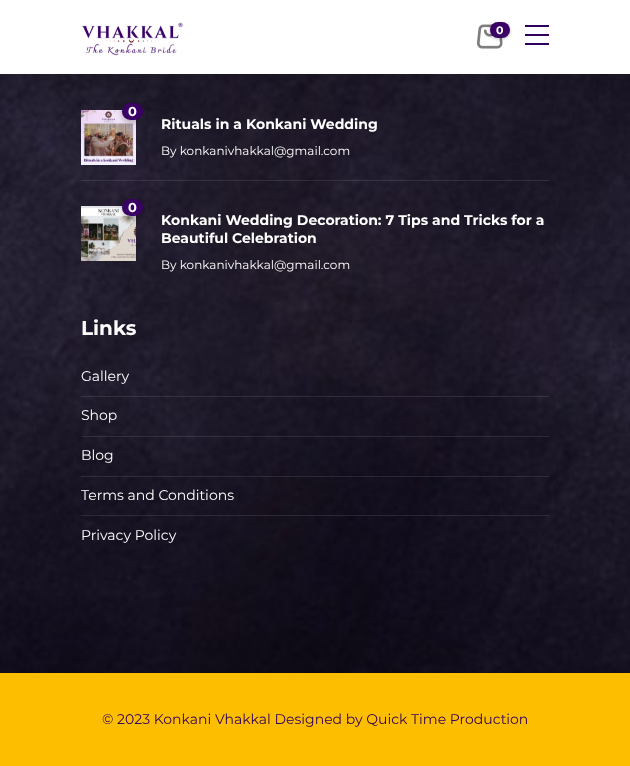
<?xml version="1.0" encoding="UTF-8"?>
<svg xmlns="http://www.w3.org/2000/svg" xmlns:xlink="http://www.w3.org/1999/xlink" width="630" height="766">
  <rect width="100%" height="100%" fill="#ffffff" />
  <image x="82" y="22" width="101" height="34" xlink:href="image1.png" />
  <image x="477" y="24" width="26" height="25" xlink:href="image2.png" />
  <rect x="489" y="22" width="22" height="18" rx="9" fill="#000000" fill-opacity="0.15" filter="blur(1px)" />
  <rect x="490" y="22" width="20" height="16" rx="8" fill="#3a0066" />
  <rect x="525" y="34" width="24" height="2" fill="#30005d" />
  <rect x="525" y="25" width="24" height="2" fill="#30005d" />
  <rect x="525" y="43" width="24" height="2" fill="#30005d" />
  <image x="0" y="74" width="630" height="599" xlink:href="image3.png" />
  <rect x="81" y="180" width="468" height="1" fill="#ffffff" fill-opacity="0.1" />
  <image x="81" y="110" width="55" height="55" xlink:href="image4.png" />
  <rect x="121" y="104" width="23" height="19" rx="9.5" fill="#000000" fill-opacity="0.2" filter="blur(2.5px)" />
  <rect x="122" y="103" width="21" height="17" rx="8.5" fill="#3a0066" />
  <image x="81" y="206" width="55" height="55" xlink:href="image5.png" />
  <rect x="121" y="200" width="23" height="19" rx="9.5" fill="#000000" fill-opacity="0.2" filter="blur(2.5px)" />
  <rect x="122" y="199" width="21" height="17" rx="8.5" fill="#3a0066" />
  <rect x="81" y="396" width="468" height="1" fill="#ffffff" fill-opacity="0.1" />
  <rect x="81" y="436" width="468" height="1" fill="#ffffff" fill-opacity="0.1" />
  <rect x="81" y="476" width="468" height="1" fill="#ffffff" fill-opacity="0.1" />
  <rect x="81" y="515" width="468" height="1" fill="#ffffff" fill-opacity="0.1" />
  <rect y="673" width="630" height="93" fill="#febe00" />
  <text x="496" y="34" style="font-family: Montserrat; font-size: 11px; font-weight: bold; fill: #ffffff">0</text>
  <text x="128" y="116" style="font-family: Montserrat; font-size: 13px; font-weight: bold; fill: #ffffff">0</text>
  <text x="161" y="129" style="font-family: Montserrat; font-size: 14px; font-weight: bold; fill: #ffffff">Rituals in a Konkani Wedding</text>
  <text x="161" y="155" style="font-family: Montserrat; font-size: 12px; fill: #ffffff">By konkanivhakkal@gmail.com</text>
  <text x="128" y="212" style="font-family: Montserrat; font-size: 13px; font-weight: bold; fill: #ffffff">0</text>
  <text x="161" y="225" style="font-family: Montserrat; font-size: 14px; font-weight: bold; fill: #ffffff">Konkani Wedding Decoration: 7 Tips and Tricks for a</text>
  <text x="161" y="243" style="font-family: Montserrat; font-size: 14px; font-weight: bold; fill: #ffffff">Beautiful Celebration</text>
  <text x="161" y="269" style="font-family: Montserrat; font-size: 12px; fill: #ffffff">By konkanivhakkal@gmail.com</text>
  <text x="81" y="335" style="font-family: Montserrat; font-size: 20px; font-weight: bold; fill: #ffffff">Links</text>
  <text x="81" y="381" style="font-family: Montserrat; font-size: 14px; fill: #ffffff">Gallery</text>
  <text x="81" y="420" style="font-family: Montserrat; font-size: 14px; fill: #ffffff">Shop</text>
  <text x="81" y="460" style="font-family: Montserrat; font-size: 14px; fill: #ffffff">Blog</text>
  <text x="81" y="500" style="font-family: Montserrat; font-size: 14px; fill: #ffffff">Terms and Conditions</text>
  <text x="81" y="540" style="font-family: Montserrat; font-size: 14px; fill: #ffffff">Privacy Policy</text>
  <text x="102" y="724" style="font-family: Montserrat; font-size: 14px; fill: #30005d">© 2023 Konkani Vhakkal Designed by Quick Time Production</text>
</svg>
